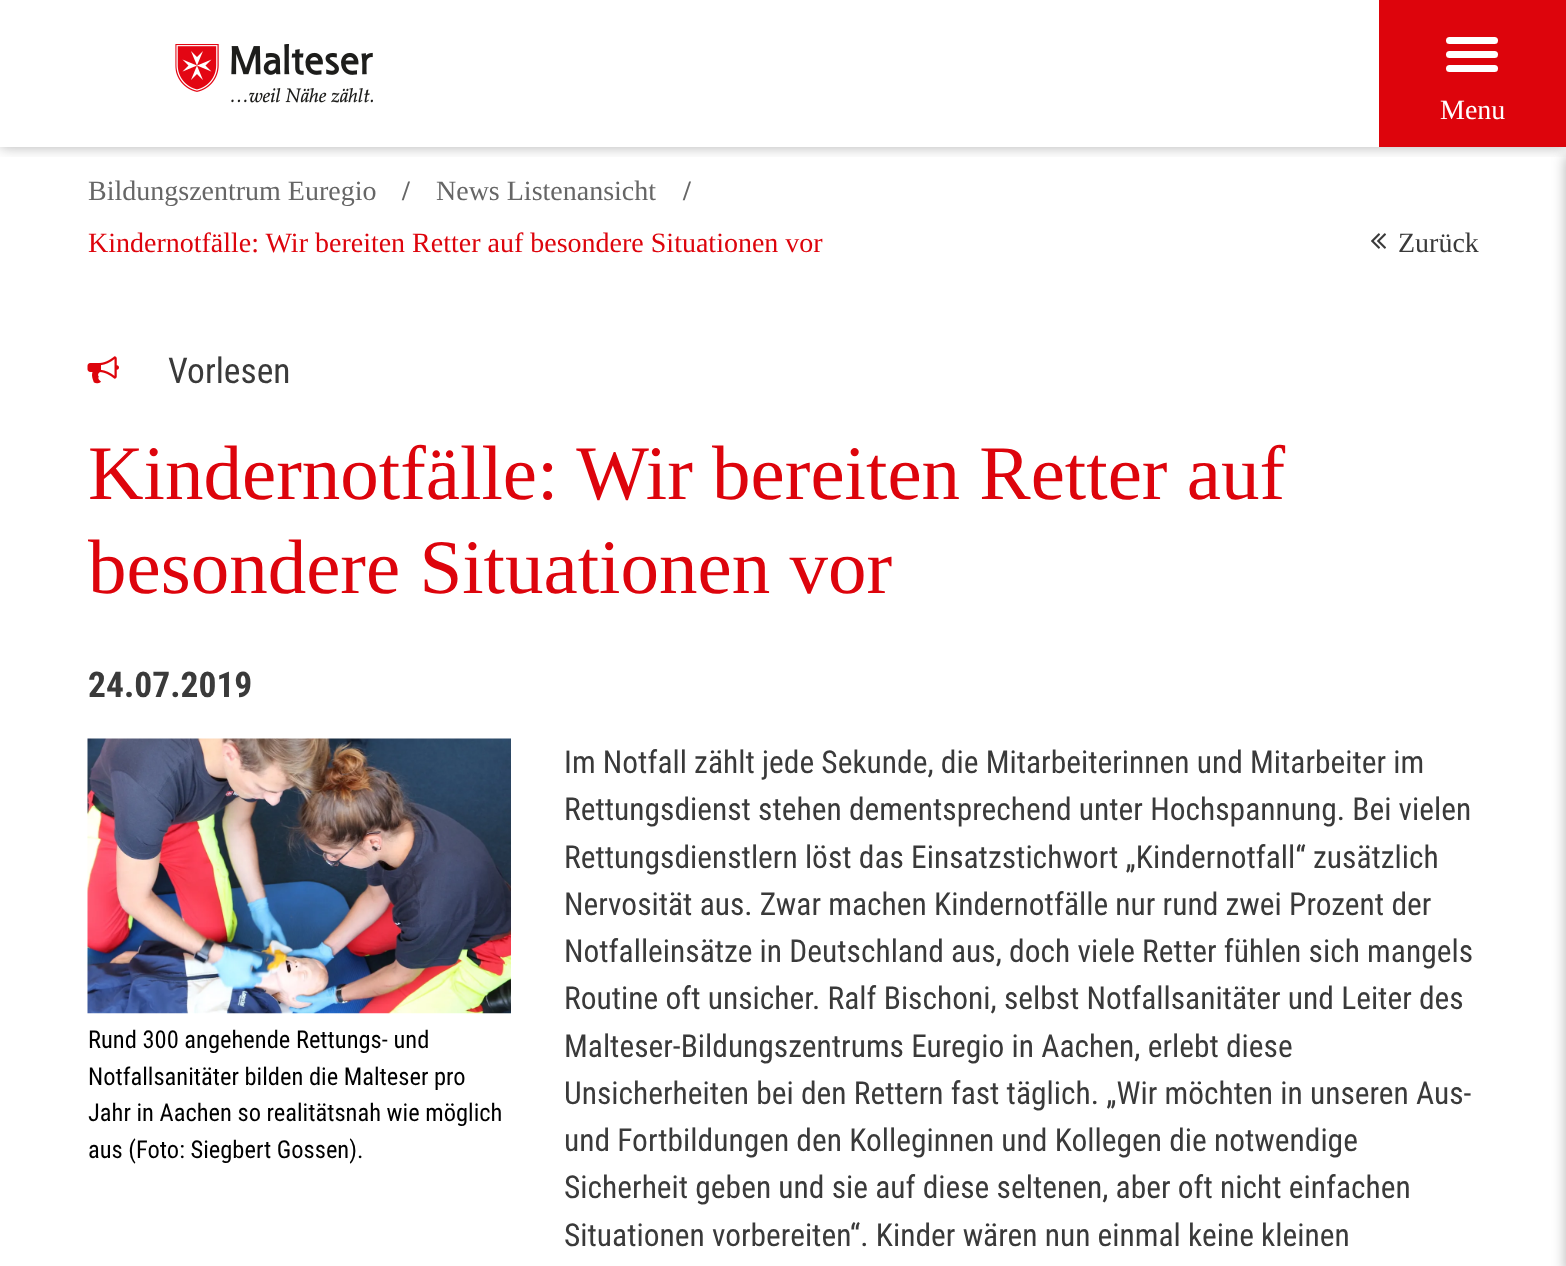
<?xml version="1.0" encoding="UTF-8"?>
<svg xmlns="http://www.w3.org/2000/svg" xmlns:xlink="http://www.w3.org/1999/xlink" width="1566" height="1266">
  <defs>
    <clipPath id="clip1"><rect x="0" y="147" width="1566" height="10" /></clipPath>
  </defs>
  <rect width="100%" height="100%" fill="#ffffff" />
  <g clip-path="url(#clip1)">
    <rect width="1566" height="147" fill="#000000" fill-opacity="0.3" filter="blur(7px)" />
  </g>
  <image x="175" y="44" width="198" height="59" xlink:href="image1.png" />
  <rect x="1379" width="187" height="147" fill="#dd040c" />
  <rect x="1446" y="37" width="52" height="7" rx="3.5" fill="#ffffff" />
  <rect x="1446" y="51" width="52" height="7" rx="3.5" fill="#ffffff" />
  <rect x="1446" y="65" width="52" height="7" rx="3.5" fill="#ffffff" />
  <rect x="1566" y="156" width="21" height="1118" fill="#000000" fill-opacity="0.3" filter="blur(7px)" />
  <image x="1371" y="233" width="15" height="16" xlink:href="image2.png" />
  <image x="87" y="356" width="32" height="28" xlink:href="image3.png" />
  <image x="87" y="738" width="424" height="276" xlink:href="image4.png" />
  <text x="1440" y="119" style="font-family: Liberation Serif; font-size: 28px; fill: #ffffff">Menu</text>
  <text x="88" y="200" style="font-family: Liberation Serif; font-size: 28px; fill: #666666">Bildungszentrum Euregio</text>
  <text x="402" y="200" style="font-family: Liberation Serif; font-size: 28px; font-weight: bold; fill: #666666">/</text>
  <text x="436" y="200" style="font-family: Liberation Serif; font-size: 28px; fill: #666666">News Listenansicht</text>
  <text x="683" y="200" style="font-family: Liberation Serif; font-size: 28px; font-weight: bold; fill: #666666">/</text>
  <text x="88" y="252" style="font-family: Liberation Serif; font-size: 28px; fill: #dd040c">Kindernotfälle: Wir bereiten Retter auf besondere Situationen vor</text>
  <text x="1398" y="252" style="font-family: Liberation Serif; font-size: 28px; fill: #3a3a3a">Zurück</text>
  <text x="168" y="383" style="font-family: Roboto Condensed; font-size: 35.5px; fill: #3a3a3a">Vorlesen</text>
  <text x="88" y="499" style="font-family: Liberation Serif; font-size: 77px; fill: #dd040c">Kindernotfälle: Wir bereiten Retter auf</text>
  <text x="88" y="593" style="font-family: Liberation Serif; font-size: 77px; fill: #dd040c">besondere Situationen vor</text>
  <text x="88" y="697" style="font-family: Roboto Condensed; font-size: 35.5px; font-weight: bold; fill: #3a3a3a">24.07.2019</text>
  <text x="88" y="1048" style="font-family: Roboto Condensed; font-size: 24.5px; fill: #000000">Rund 300 angehende Rettungs- und</text>
  <text x="88" y="1085" style="font-family: Roboto Condensed; font-size: 24.5px; fill: #000000">Notfallsanitäter bilden die Malteser pro</text>
  <text x="88" y="1121" style="font-family: Roboto Condensed; font-size: 24.5px; fill: #000000">Jahr in Aachen so realitätsnah wie möglich</text>
  <text x="88" y="1158" style="font-family: Roboto Condensed; font-size: 24.5px; fill: #000000">aus (Foto: Siegbert Gossen).</text>
  <text x="564" y="773" style="font-family: Roboto Condensed; font-size: 31.5px; fill: #3a3a3a">Im Notfall zählt jede Sekunde, die Mitarbeiterinnen und Mitarbeiter im</text>
  <text x="564" y="820" style="font-family: Roboto Condensed; font-size: 31.5px; fill: #3a3a3a">Rettungsdienst stehen dementsprechend unter Hochspannung. Bei vielen</text>
  <text x="564" y="868" style="font-family: Roboto Condensed; font-size: 31.5px; fill: #3a3a3a">Rettungsdienstlern löst das Einsatzstichwort „Kindernotfall“ zusätzlich</text>
  <text x="564" y="915" style="font-family: Roboto Condensed; font-size: 31.5px; fill: #3a3a3a">Nervosität aus. Zwar machen Kindernotfälle nur rund zwei Prozent der</text>
  <text x="564" y="962" style="font-family: Roboto Condensed; font-size: 31.5px; fill: #3a3a3a">Notfalleinsätze in Deutschland aus, doch viele Retter fühlen sich mangels</text>
  <text x="564" y="1009" style="font-family: Roboto Condensed; font-size: 31.5px; fill: #3a3a3a">Routine oft unsicher. Ralf Bischoni, selbst Notfallsanitäter und Leiter des</text>
  <text x="564" y="1057" style="font-family: Roboto Condensed; font-size: 31.5px; fill: #3a3a3a">Malteser-Bildungszentrums Euregio in Aachen, erlebt diese</text>
  <text x="564" y="1104" style="font-family: Roboto Condensed; font-size: 31.5px; fill: #3a3a3a">Unsicherheiten bei den Rettern fast täglich. „Wir möchten in unseren Aus-</text>
  <text x="564" y="1151" style="font-family: Roboto Condensed; font-size: 31.5px; fill: #3a3a3a">und Fortbildungen den Kolleginnen und Kollegen die notwendige</text>
  <text x="564" y="1198" style="font-family: Roboto Condensed; font-size: 31.5px; fill: #3a3a3a">Sicherheit geben und sie auf diese seltenen, aber oft nicht einfachen</text>
  <text x="564" y="1246" style="font-family: Roboto Condensed; font-size: 31.5px; fill: #3a3a3a">Situationen vorbereiten“. Kinder wären nun einmal keine kleinen</text>
</svg>
